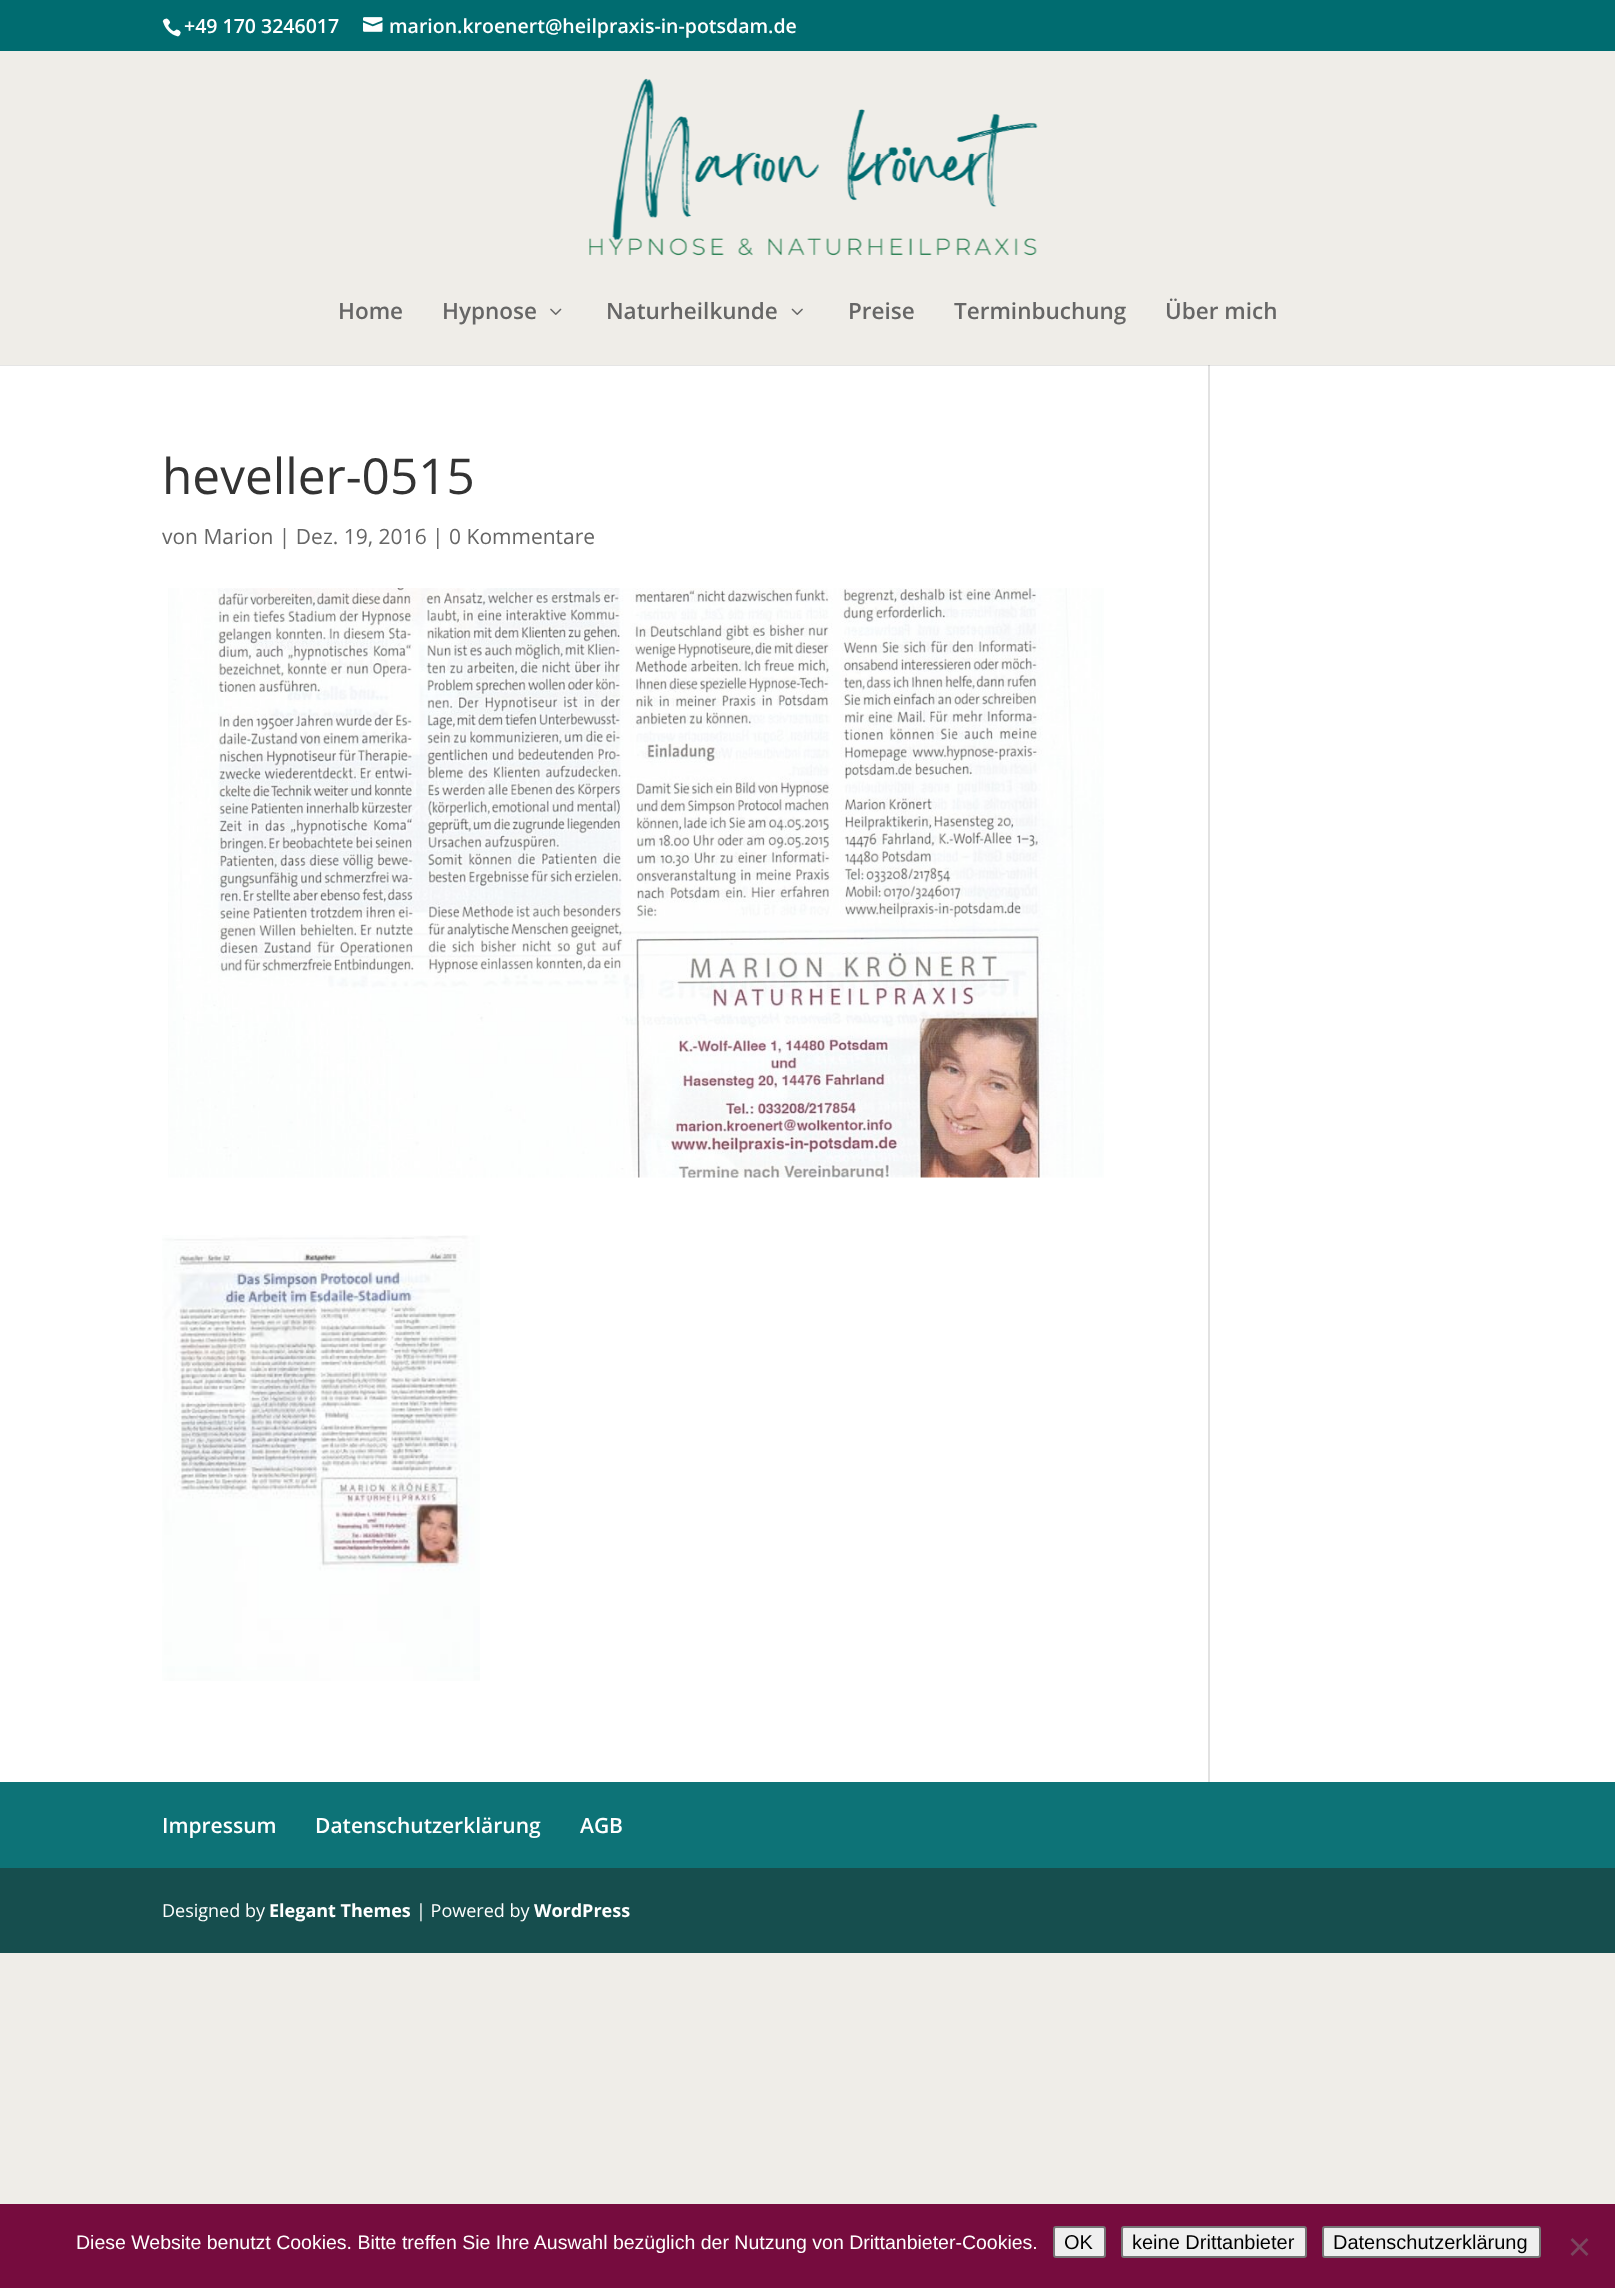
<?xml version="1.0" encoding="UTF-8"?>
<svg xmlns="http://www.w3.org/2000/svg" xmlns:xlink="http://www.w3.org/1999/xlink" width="1615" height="2288">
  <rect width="100%" height="100%" fill="#efede8" />
  <rect width="1615" height="51" fill="#006c70" />
  <image x="162" y="18" width="19" height="19" xlink:href="image1.png" />
  <image x="363" y="17" width="20" height="15" xlink:href="image2.png" />
  <rect y="365" width="1615" height="1417" fill="#ffffff" />
  <rect x="1208" y="365" width="2" height="1417" fill="#e2e2e2" />
  <path d="M 0 364 v 2 h 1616 v -313 v 311 z" fill="#000000" fill-opacity="0.1" />
  <rect y="364" width="1615" height="1" fill="#efede8" />
  <image x="589" y="78" width="449" height="178" xlink:href="image3.png" />
  <image x="550" y="308" width="12" height="7" xlink:href="image4.png" />
  <image x="791" y="308" width="12" height="7" xlink:href="image5.png" />
  <image x="168" y="588" width="936" height="590" xlink:href="image6.png" />
  <image x="162" y="1235" width="318" height="446" xlink:href="image7.png" />
  <rect y="1782" width="1615" height="86" fill="#0d7377" />
  <rect y="1868" width="1615" height="85" fill="#164e4e" />
  <rect y="2204" width="1615" height="84" fill="#760c3e" />
  <rect x="1054" y="2227" width="51" height="30" rx="2" fill="#efefef" stroke="#767676" stroke-width="2" />
  <rect x="1122" y="2227" width="184" height="30" rx="2" fill="#efefef" stroke="#767676" stroke-width="2" />
  <rect x="1323" y="2227" width="217" height="30" rx="2" fill="#efefef" stroke="#767676" stroke-width="2" />
  <path d="M 1586.5 2238 l 2 2 l -16 16 l -2 -2 z" fill="#7b465f" />
  <path d="M 1570.5 2240 l 2 -2 l 16 16 l -2 2 z" fill="#7b465f" />
  <text x="184" y="33" style="font-family: Open Sans; font-size: 19.5px; font-weight: 600; fill: #ffffff">+49 170 3246017</text>
  <text x="389" y="33" style="font-family: Open Sans; font-size: 19.5px; font-weight: 600; fill: #ffffff">marion.kroenert@heilpraxis-in-potsdam.de</text>
  <text x="338" y="319" style="font-family: Open Sans; font-size: 22.5px; font-weight: 600; fill: #666666">Home</text>
  <text x="442" y="319" style="font-family: Open Sans; font-size: 22.5px; font-weight: 600; fill: #666666">Hypnose</text>
  <text x="606" y="319" style="font-family: Open Sans; font-size: 22.5px; font-weight: 600; fill: #666666">Naturheilkunde</text>
  <text x="848" y="319" style="font-family: Open Sans; font-size: 22.5px; font-weight: 600; fill: #666666">Preise</text>
  <text x="954" y="319" style="font-family: Open Sans; font-size: 22.5px; font-weight: 600; fill: #666666">Terminbuchung</text>
  <text x="1165" y="319" style="font-family: Open Sans; font-size: 22.5px; font-weight: 600; fill: #666666">Über mich</text>
  <text x="162" y="494" style="font-family: Open Sans; font-size: 49.5px; fill: #333333">heveller-0515</text>
  <text x="162" y="544" style="font-family: Open Sans; font-size: 21px; fill: #666666">von Marion | Dez. 19, 2016 | 0 Kommentare</text>
  <text x="162" y="1833" style="font-family: Open Sans; font-size: 21px; font-weight: 600; fill: #ffffff">Impressum</text>
  <text x="315" y="1833" style="font-family: Open Sans; font-size: 21px; font-weight: 600; fill: #ffffff">Datenschutzerklärung</text>
  <text x="580" y="1833" style="font-family: Open Sans; font-size: 21px; font-weight: 600; fill: #ffffff">AGB</text>
  <text x="162" y="1917" style="font-family: Open Sans; font-size: 18px; fill: #ffffff">Designed by</text>
  <text x="269" y="1917" style="font-family: Open Sans; font-size: 18px; font-weight: bold; fill: #ffffff">Elegant Themes</text>
  <text x="416" y="1917" style="font-family: Open Sans; font-size: 18px; fill: #ffffff">| Powered by</text>
  <text x="534" y="1917" style="font-family: Open Sans; font-size: 18px; font-weight: bold; fill: #ffffff">WordPress</text>
  <text x="76" y="2249" style="font-family: Liberation Sans; font-size: 19.5px; fill: #ffffff">Diese Website benutzt Cookies. Bitte treffen Sie Ihre Auswahl bezüglich der Nutzung von Drittanbieter-Cookies.</text>
  <text x="1064" y="2249" style="font-family: Liberation Sans; font-size: 20px; fill: #000000">OK</text>
  <text x="1132" y="2249" style="font-family: Liberation Sans; font-size: 20px; fill: #000000">keine Drittanbieter</text>
  <text x="1333" y="2249" style="font-family: Liberation Sans; font-size: 20px; fill: #000000">Datenschutzerklärung</text>
</svg>
